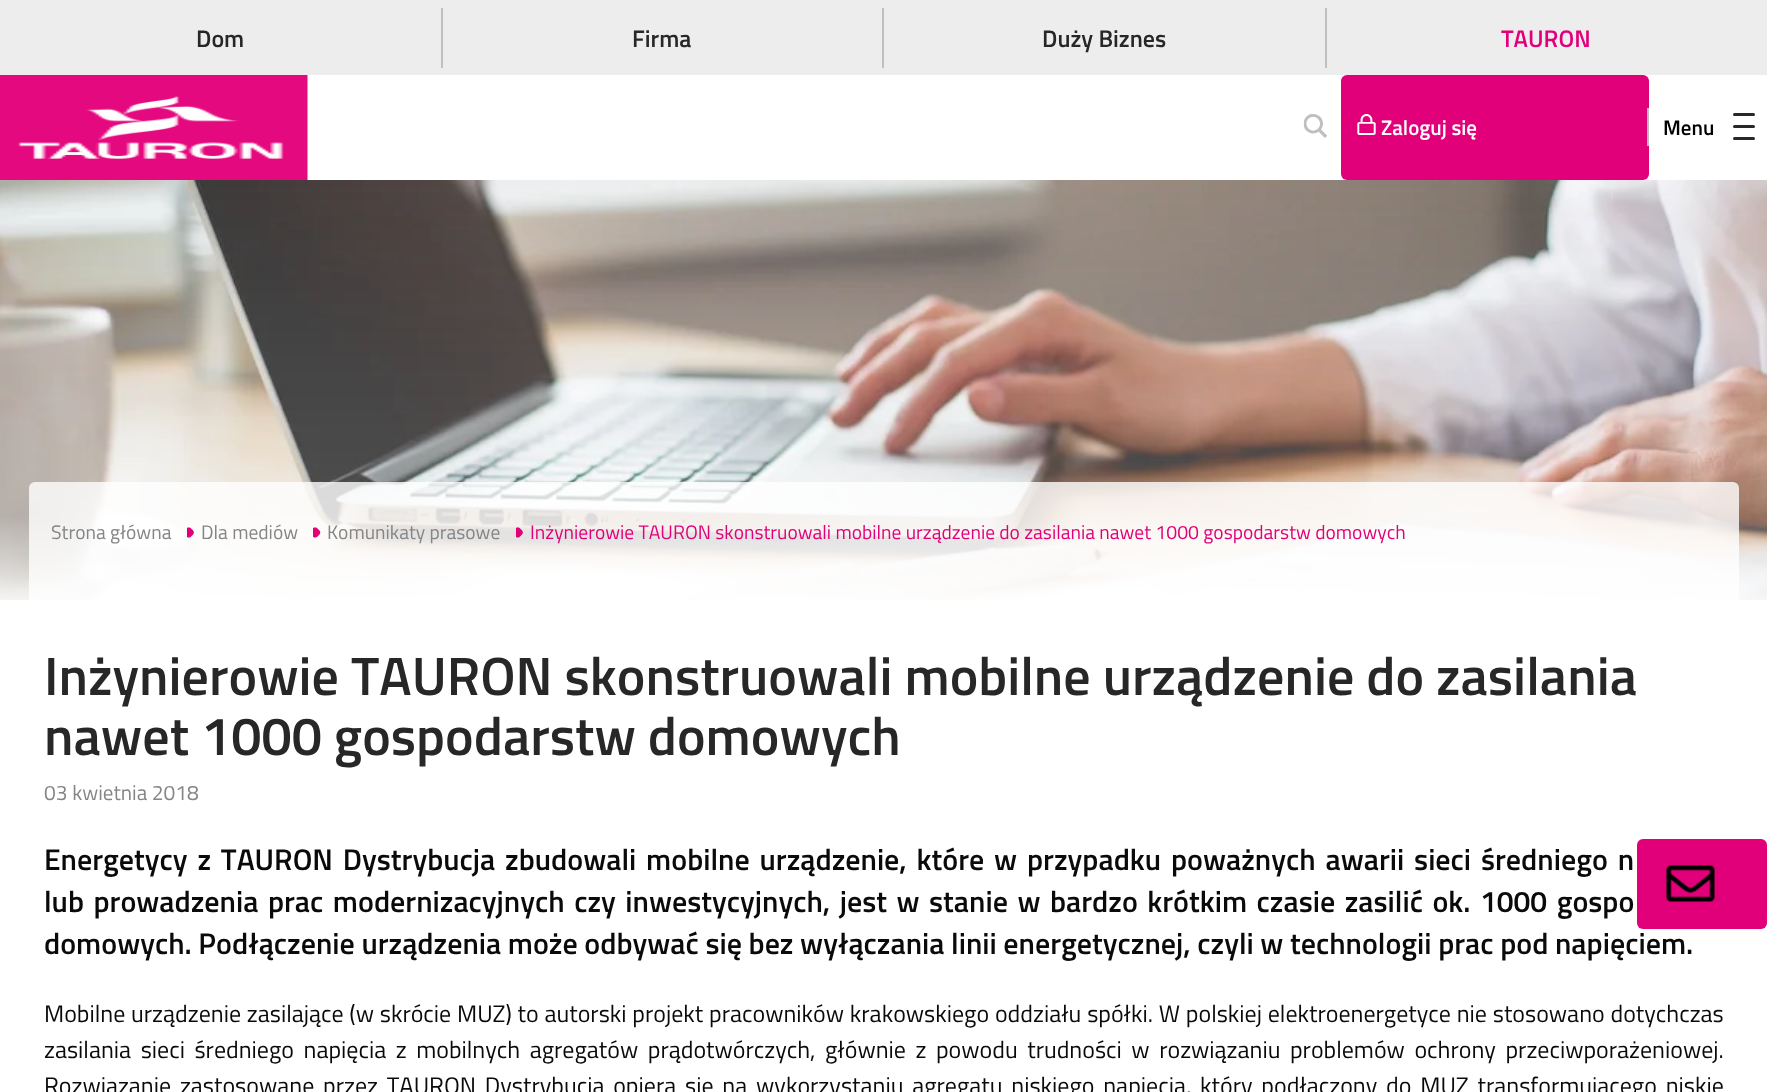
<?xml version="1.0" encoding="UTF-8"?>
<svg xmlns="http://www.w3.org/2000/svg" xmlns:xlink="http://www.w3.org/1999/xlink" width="1767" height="1092">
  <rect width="100%" height="100%" fill="#ffffff" />
  <rect width="1767" height="75" fill="#ededed" />
  <rect x="441" y="8" width="2" height="60" fill="#bfbfbf" />
  <rect x="882" y="8" width="2" height="60" fill="#bfbfbf" />
  <rect x="1325" y="8" width="2" height="60" fill="#bfbfbf" />
  <image x="0" y="75" width="308" height="105" xlink:href="image1.png" />
  <image x="1303" y="114" width="24" height="24" xlink:href="image2.png" />
  <rect x="1341" y="75" width="308" height="105" rx="6" fill="#e2007a" />
  <image x="1357" y="114" width="19" height="21" xlink:href="image3.png" />
  <rect x="1647" y="108" width="2" height="38" fill="#bfbfbf" />
  <rect x="1733" y="113" width="22" height="3" rx="1.5" fill="#272727" />
  <rect x="1733" y="125" width="22" height="3" rx="1.5" fill="#272727" />
  <rect x="1733" y="137" width="22" height="3" rx="1.5" fill="#272727" />
  <image x="0" y="180" width="1767" height="420" xlink:href="image4.png" />
  <rect x="29" y="482" width="1710" height="126" rx="6" fill="#ffffff" fill-opacity="0.8" />
  <image x="187" y="527" width="7" height="11" xlink:href="image5.png" />
  <image x="313" y="527" width="8" height="11" xlink:href="image6.png" />
  <image x="516" y="527" width="7" height="11" xlink:href="image7.png" />
  <rect x="1637" y="839" width="130" height="90" rx="6" fill="#e2007a" />
  <image x="1666" y="865" width="49" height="37" xlink:href="image8.png" />
  <text x="196" y="47" style="font-family: Titillium Web; font-size: 24px; font-weight: 600; fill: #272727">Dom</text>
  <text x="632" y="47" style="font-family: Titillium Web; font-size: 24px; font-weight: 600; fill: #272727">Firma</text>
  <text x="1042" y="47" style="font-family: Titillium Web; font-size: 24px; font-weight: 600; fill: #272727">Duży Biznes</text>
  <text x="1501" y="47" style="font-family: Titillium Web; font-size: 24px; font-weight: 600; fill: #e2007a">TAURON</text>
  <text x="1381" y="135" style="font-family: Titillium Web; font-size: 21px; font-weight: 600; fill: #ffffff">Zaloguj się</text>
  <text x="1663" y="135" style="font-family: Titillium Web; font-size: 21px; font-weight: 600; fill: #000000">Menu</text>
  <text x="51" y="539" style="font-family: Titillium Web; font-size: 19.5px; fill: #858585">Strona główna</text>
  <text x="201" y="539" style="font-family: Titillium Web; font-size: 19.5px; fill: #858585">Dla mediów</text>
  <text x="327" y="539" style="font-family: Titillium Web; font-size: 19.5px; fill: #858585">Komunikaty prasowe</text>
  <text x="530" y="539" style="font-family: Titillium Web; font-size: 19.5px; fill: #e2007a">Inżynierowie TAURON skonstruowali mobilne urządzenie do zasilania nawet 1000 gospodarstw domowych</text>
  <text x="44" y="695" style="font-family: Titillium Web; font-size: 54px; font-weight: 600; fill: #272727">Inżynierowie TAURON skonstruowali mobilne urządzenie do zasilania</text>
  <text x="44" y="755" style="font-family: Titillium Web; font-size: 54px; font-weight: 600; fill: #272727">nawet 1000 gospodarstw domowych</text>
  <text x="44" y="800" style="font-family: Titillium Web; font-size: 21px; fill: #858585">03 kwietnia 2018</text>
  <text x="44" y="870" word-spacing="3.25" style="font-family: Titillium Web; font-size: 30px; font-weight: 600; fill: #0a0a0a">Energetycy z TAURON Dystrybucja zbudowali mobilne urządzenie, które w przypadku poważnych awarii sieci średniego n</text>
  <text x="44" y="912" word-spacing="2.9" style="font-family: Titillium Web; font-size: 30px; font-weight: 600; fill: #0a0a0a">lub prowadzenia prac modernizacyjnych czy inwestycyjnych, jest w stanie w bardzo krótkim czasie zasilić ok. 1000 gospo</text>
  <text x="44" y="954" style="font-family: Titillium Web; font-size: 30px; font-weight: 600; fill: #0a0a0a">domowych. Podłączenie urządzenia może odbywać się bez wyłączania linii energetycznej, czyli w technologii prac pod napięciem.</text>
  <text x="44" y="1022" word-spacing="0.5" style="font-family: Titillium Web; font-size: 24px; fill: #0a0a0a">Mobilne urządzenie zasilające (w skrócie MUZ) to autorski projekt pracowników krakowskiego oddziału spółki. W polskiej elektroenergetyce nie stosowano dotychczas</text>
  <text x="44" y="1058" word-spacing="4.25" style="font-family: Titillium Web; font-size: 24px; fill: #0a0a0a">zasilania sieci średniego napięcia z mobilnych agregatów prądotwórczych, głównie z powodu trudności w rozwiązaniu problemów ochrony przeciwporażeniowej.</text>
  <text x="44" y="1094" word-spacing="3.5" style="font-family: Titillium Web; font-size: 24px; fill: #0a0a0a">Rozwiązanie zastosowane przez TAURON Dystrybucja opiera się na wykorzystaniu agregatu niskiego napięcia, który podłączony do MUZ transformującego niskie</text>
</svg>
